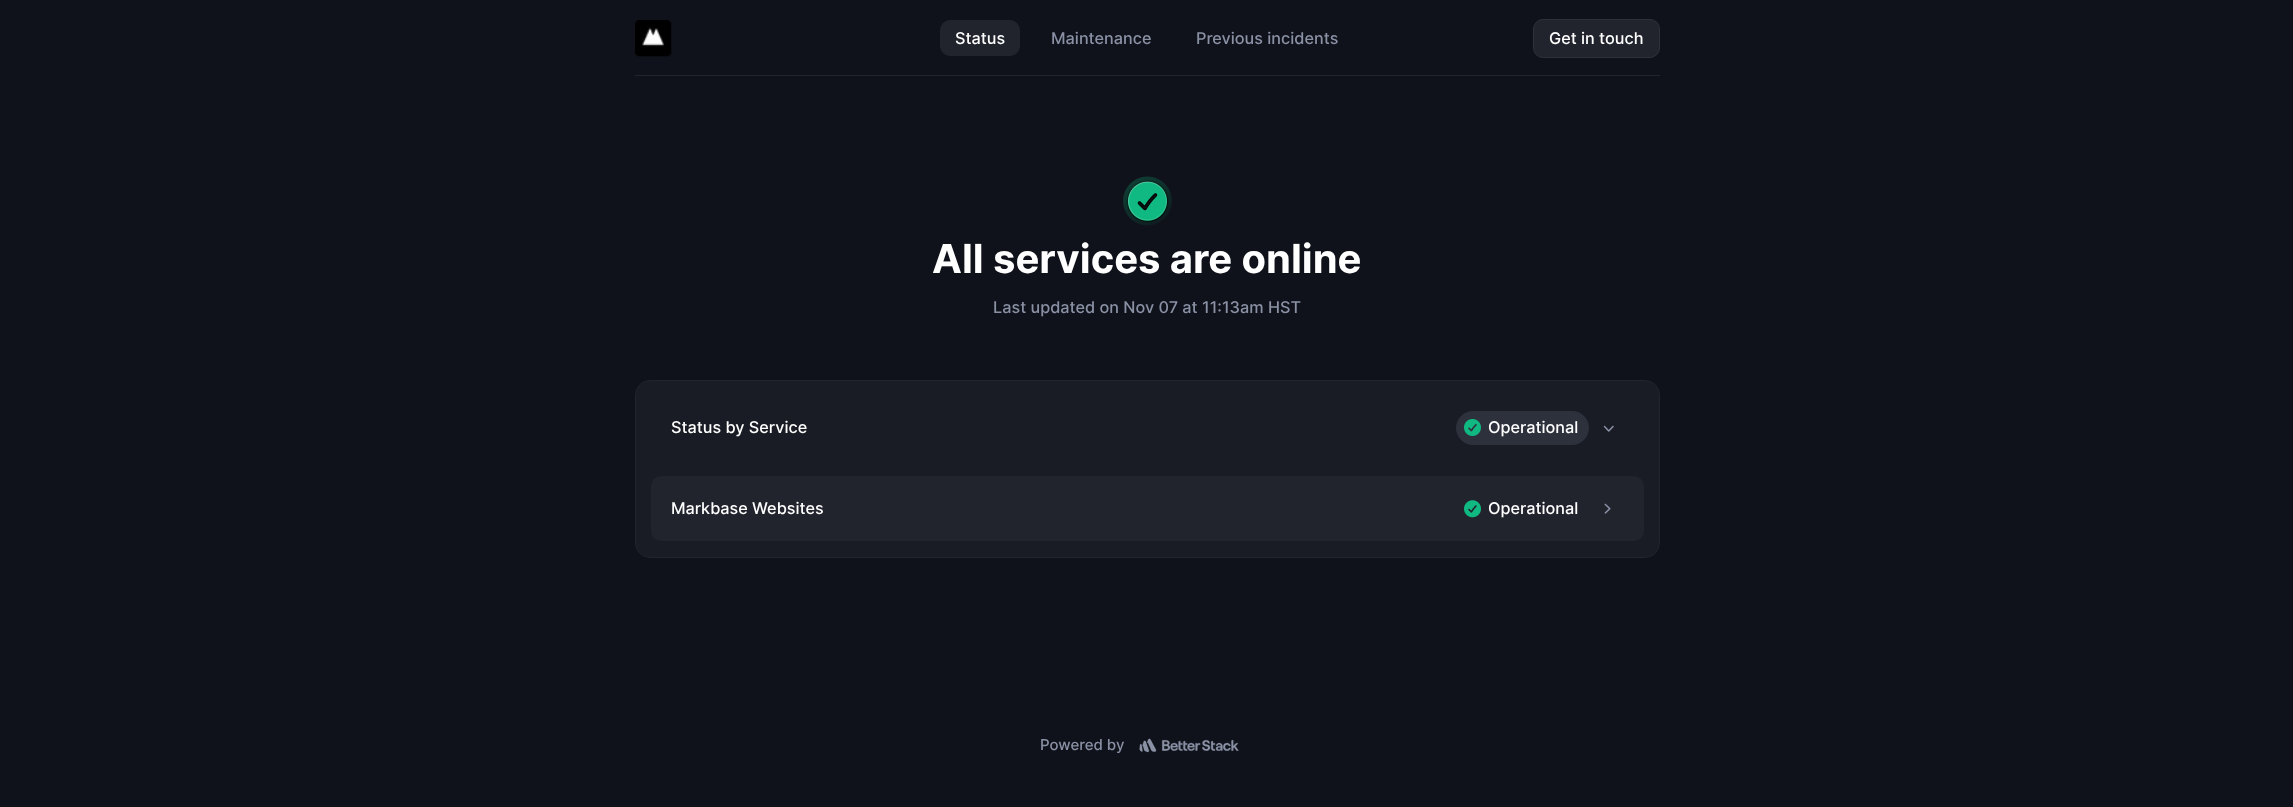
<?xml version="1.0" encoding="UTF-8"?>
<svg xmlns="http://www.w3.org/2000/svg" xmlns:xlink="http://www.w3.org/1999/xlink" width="2293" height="807">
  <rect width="100%" height="100%" fill="#0f121a" />
  <image x="635" y="20" width="37" height="37" xlink:href="image1.png" />
  <rect x="940" y="20" width="80" height="36" rx="10" fill="#21242d" />
  <rect x="1533.5" y="19.5" width="126" height="38" rx="9.5" fill="#21242d" stroke="#2d313c" />
  <rect x="635" y="75" width="1025" height="1" fill="#21242d" />
  <image x="1123" y="176" width="49" height="50" xlink:href="image2.png" />
  <rect x="635.5" y="380.5" width="1024" height="177" rx="14.5" fill="#191c24" stroke="#21242d" />
  <rect x="1456" y="411" width="133" height="34" rx="17" fill="#2d313c" />
  <image x="1464" y="419" width="17" height="17" xlink:href="image3.png" />
  <image x="1603" y="425" width="11" height="7" xlink:href="image4.png" />
  <rect x="651" y="476" width="993" height="65" rx="10" fill="#21242d" />
  <image x="1464" y="500" width="17" height="18" xlink:href="image5.png" />
  <image x="1604" y="503" width="7" height="11" xlink:href="image6.png" />
  <image x="1139" y="738" width="100" height="15" xlink:href="image7.png" />
  <text x="955" y="44" style="font-family: Inter; font-size: 16.25px; font-weight: 500; fill: #ffffff">Status</text>
  <text x="1051" y="44" style="font-family: Inter; font-size: 16.25px; font-weight: 500; fill: #8a91a5">Maintenance</text>
  <text x="1196" y="44" style="font-family: Inter; font-size: 16.25px; font-weight: 500; fill: #8a91a5">Previous incidents</text>
  <text x="1549" y="44" style="font-family: Inter; font-size: 16.25px; font-weight: 500; fill: #ffffff">Get in touch</text>
  <text x="932" y="273" style="font-family: Inter; font-size: 40px; font-weight: bold; fill: #ffffff">All services are online</text>
  <text x="993" y="313" style="font-family: Inter; font-size: 16.25px; font-weight: 500; fill: #8a91a5">Last updated on Nov 07 at 11:13am HST</text>
  <text x="671" y="433" style="font-family: Inter; font-size: 16.25px; font-weight: 500; fill: #ffffff">Status by Service</text>
  <text x="1488" y="433" style="font-family: Inter; font-size: 16.25px; font-weight: 500; fill: #ffffff">Operational</text>
  <text x="671" y="514" style="font-family: Inter; font-size: 16.25px; font-weight: 500; fill: #ffffff">Markbase Websites</text>
  <text x="1488" y="514" style="font-family: Inter; font-size: 16.25px; font-weight: 500; fill: #ffffff">Operational</text>
  <text x="1040" y="750" style="font-family: Inter; font-size: 15px; font-weight: 500; fill: #8a91a5">Powered by</text>
</svg>
